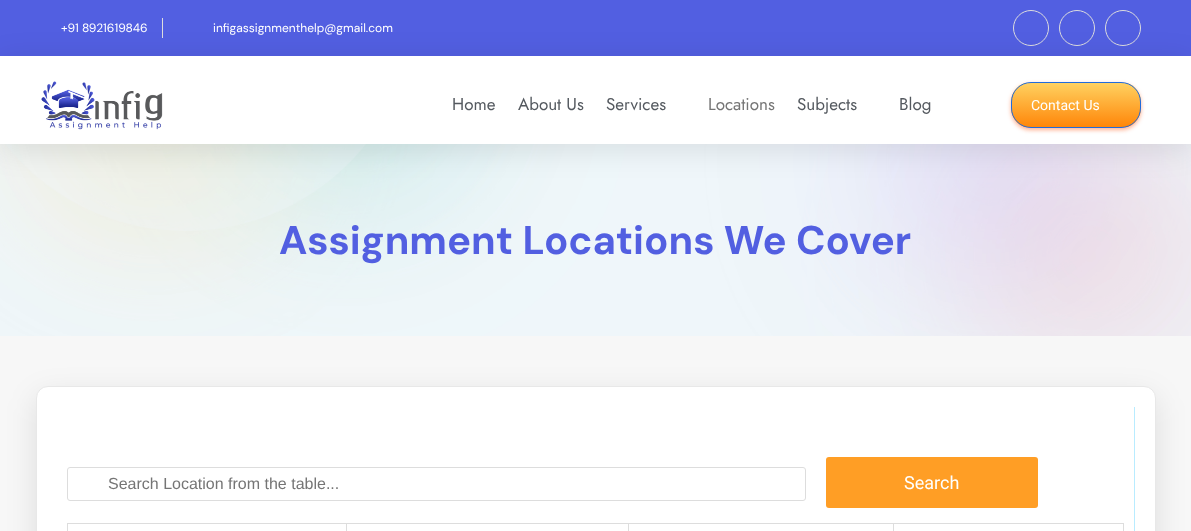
<?xml version="1.0" encoding="UTF-8"?>
<svg xmlns="http://www.w3.org/2000/svg" xmlns:xlink="http://www.w3.org/1999/xlink" width="1191" height="531">
  <defs>
    <clipPath id="clip1"><rect x="1011" y="82" width="130" height="46" rx="20" /></clipPath>
    <linearGradient id="g1" gradientUnits="userSpaceOnUse" x1="1076" y1="83" x2="1076" y2="127"><stop offset="0" stop-color="#ffd160" /><stop offset="1" stop-color="#ff8609" /></linearGradient>
  </defs>
  <rect width="100%" height="100%" fill="#ffffff" />
  <rect width="1191" height="56" fill="#525fe1" />
  <rect x="162" y="18" width="1" height="20" fill="#dddddd" />
  <circle cx="1031" cy="28" r="17.5" fill="none" stroke="#dcdcde" />
  <circle cx="1077" cy="28" r="17.5" fill="none" stroke="#dcdcde" />
  <circle cx="1123" cy="28" r="17.5" fill="none" stroke="#dcdcde" />
  <image x="0" y="144" width="1191" height="192" xlink:href="image2.png" />
  <rect y="61" width="1191" height="88" fill="#000000" fill-opacity="0.1" filter="blur(15px)" />
  <rect y="56" width="1191" height="88" fill="#ffffff" />
  <image x="41" y="81" width="122" height="49" xlink:href="image1.png" />
  <rect x="1011" y="84" width="130" height="46" rx="20" fill="#ff6221" fill-opacity="0.5" filter="blur(2px)" />
  <g clip-path="url(#clip1)">
    <rect x="1011" y="83" width="130" height="44" fill="url(#g1)" />
  </g>
  <rect x="1011.5" y="82.5" width="129" height="45" rx="19.5" fill="none" stroke="#216bdb" />
  <rect y="336" width="1191" height="195" fill="#f7f7f7" />
  <rect x="36" y="396" width="1120" height="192" rx="12" fill="#000000" fill-opacity="0.1" filter="blur(15px)" />
  <rect x="36.5" y="386.5" width="1119" height="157" rx="11.5" fill="#ffffff" stroke="#e8e8e8" />
  <rect x="1134" y="407" width="1" height="124" fill="#b9ecff" />
  <rect x="67.5" y="467.5" width="738" height="33" rx="2.5" fill="none" stroke="#dddddd" />
  <rect x="826" y="457" width="212" height="51" rx="3" fill="#ff9e25" />
  <rect x="67" y="523" width="1057" height="1" fill="#dddddd" />
  <rect x="1123" y="523" width="1" height="8" fill="#dddddd" />
  <rect x="67" y="523" width="1" height="8" fill="#dddddd" />
  <rect x="346" y="523" width="1" height="8" fill="#dddddd" />
  <rect x="628" y="523" width="1" height="8" fill="#dddddd" />
  <rect x="893" y="523" width="1" height="8" fill="#dddddd" />
  <text x="61" y="32" style="font-family: DM Sans; font-size: 12px; fill: #ffffff">+91 8921619846</text>
  <text x="213" y="32" style="font-family: DM Sans; font-size: 12px; fill: #ffffff">infigassignmenthelp@gmail.com</text>
  <text x="452" y="110" style="font-family: Jost; font-size: 17px; fill: #54595f">Home</text>
  <text x="518" y="110" style="font-family: Jost; font-size: 17px; fill: #54595f">About Us</text>
  <text x="606" y="110" style="font-family: Jost; font-size: 17px; fill: #54595f">Services</text>
  <text x="708" y="110" style="font-family: Jost; font-size: 17px; fill: #757575">Locations</text>
  <text x="797" y="110" style="font-family: Jost; font-size: 17px; fill: #54595f">Subjects</text>
  <text x="899" y="110" style="font-family: Jost; font-size: 17px; fill: #54595f">Blog</text>
  <text x="1031" y="110" style="font-family: Roboto; font-size: 14px; fill: #ffffff">Contact Us</text>
  <text x="279" y="254" style="font-family: DM Sans; font-size: 40px; font-weight: bold; fill: #525fe1">Assignment Locations We Cover</text>
  <text x="108" y="489" style="font-family: Liberation Sans; font-size: 16px; fill: #757575">Search Location from the table...</text>
  <text x="904" y="489" style="font-family: Roboto; font-size: 18px; fill: #ffffff">Search</text>
</svg>
